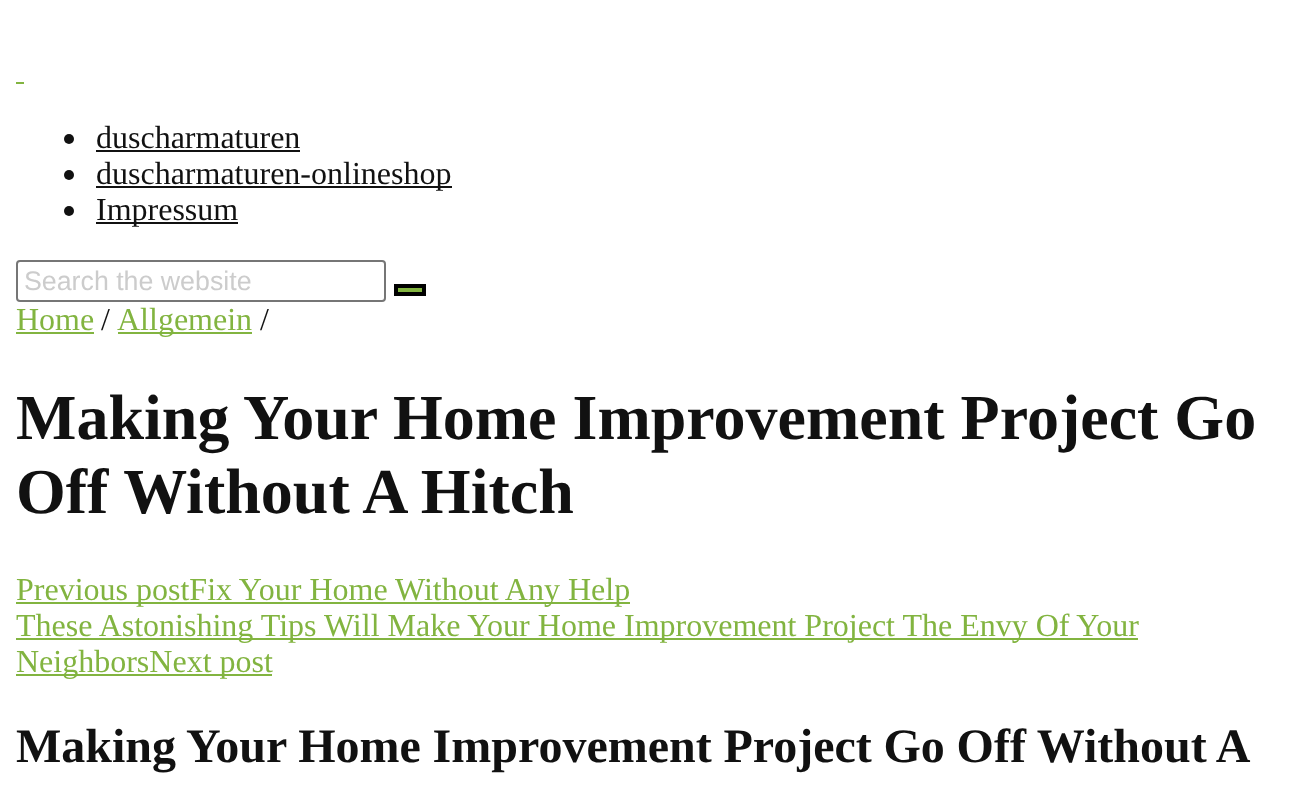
<?xml version="1.0" encoding="UTF-8"?>
<svg xmlns="http://www.w3.org/2000/svg" xmlns:xlink="http://www.w3.org/1999/xlink" width="1312" height="788">
  <rect width="100%" height="100%" fill="#ffffff" />
  <rect x="16" y="82" width="8" height="2" fill="#82b440" />
  <circle cx="69" cy="139" r="5" fill="#111111" />
  <rect x="96" y="150" width="204" height="2" fill="#111111" />
  <circle cx="69" cy="175" r="5" fill="#111111" />
  <rect x="96" y="186" width="356" height="2" fill="#111111" />
  <circle cx="69" cy="211" r="5" fill="#111111" />
  <rect x="96" y="222" width="142" height="2" fill="#111111" />
  <rect x="17" y="261" width="368" height="40" rx="3" fill="none" stroke="#767676" stroke-width="2" />
  <rect x="396" y="286" width="28" height="8" fill="#82b440" stroke="#000000" stroke-width="4" />
  <rect x="16" y="332" width="78" height="2" fill="#82b440" />
  <rect x="118" y="332" width="134" height="2" fill="#82b440" />
  <rect x="16" y="602" width="614" height="2" fill="#82b440" />
  <rect x="16" y="638" width="1122" height="2" fill="#82b440" />
  <rect x="16" y="674" width="256" height="2" fill="#82b440" />
  <text x="96" y="148" style="font-family: Liberation Serif; font-size: 32px; fill: #111111">duscharmaturen</text>
  <text x="96" y="184" style="font-family: Liberation Serif; font-size: 32px; fill: #111111">duscharmaturen-onlineshop</text>
  <text x="96" y="220" style="font-family: Liberation Serif; font-size: 32px; fill: #111111">Impressum</text>
  <text x="24" y="290" style="font-family: Liberation Sans; font-size: 26.75px; fill: #cccccc">Search the website</text>
  <text x="16" y="330" style="font-family: Liberation Serif; font-size: 32px; fill: #82b440">Home</text>
  <text x="101" y="330" style="font-family: Liberation Serif; font-size: 32px; fill: #111111">/</text>
  <text x="117" y="330" style="font-family: Liberation Serif; font-size: 32px; fill: #82b440">Allgemein</text>
  <text x="260" y="330" style="font-family: Liberation Serif; font-size: 32px; fill: #111111">/</text>
  <text x="16" y="439" style="font-family: Liberation Serif; font-size: 64px; font-weight: bold; fill: #111111">Making Your Home Improvement Project Go</text>
  <text x="16" y="513" style="font-family: Liberation Serif; font-size: 64px; font-weight: bold; fill: #111111">Off Without A Hitch</text>
  <text x="16" y="600" style="font-family: Liberation Serif; font-size: 32px; fill: #82b440">Previous postFix Your Home Without Any Help</text>
  <text x="16" y="636" style="font-family: Liberation Serif; font-size: 32px; fill: #82b440">These Astonishing Tips Will Make Your Home Improvement Project The Envy Of Your</text>
  <text x="16" y="672" style="font-family: Liberation Serif; font-size: 32px; fill: #82b440">NeighborsNext post</text>
  <text x="16" y="762" word-spacing="-0.25" style="font-family: Liberation Serif; font-size: 48px; font-weight: bold; fill: #111111">Making Your Home Improvement Project Go Off Without A</text>
</svg>
